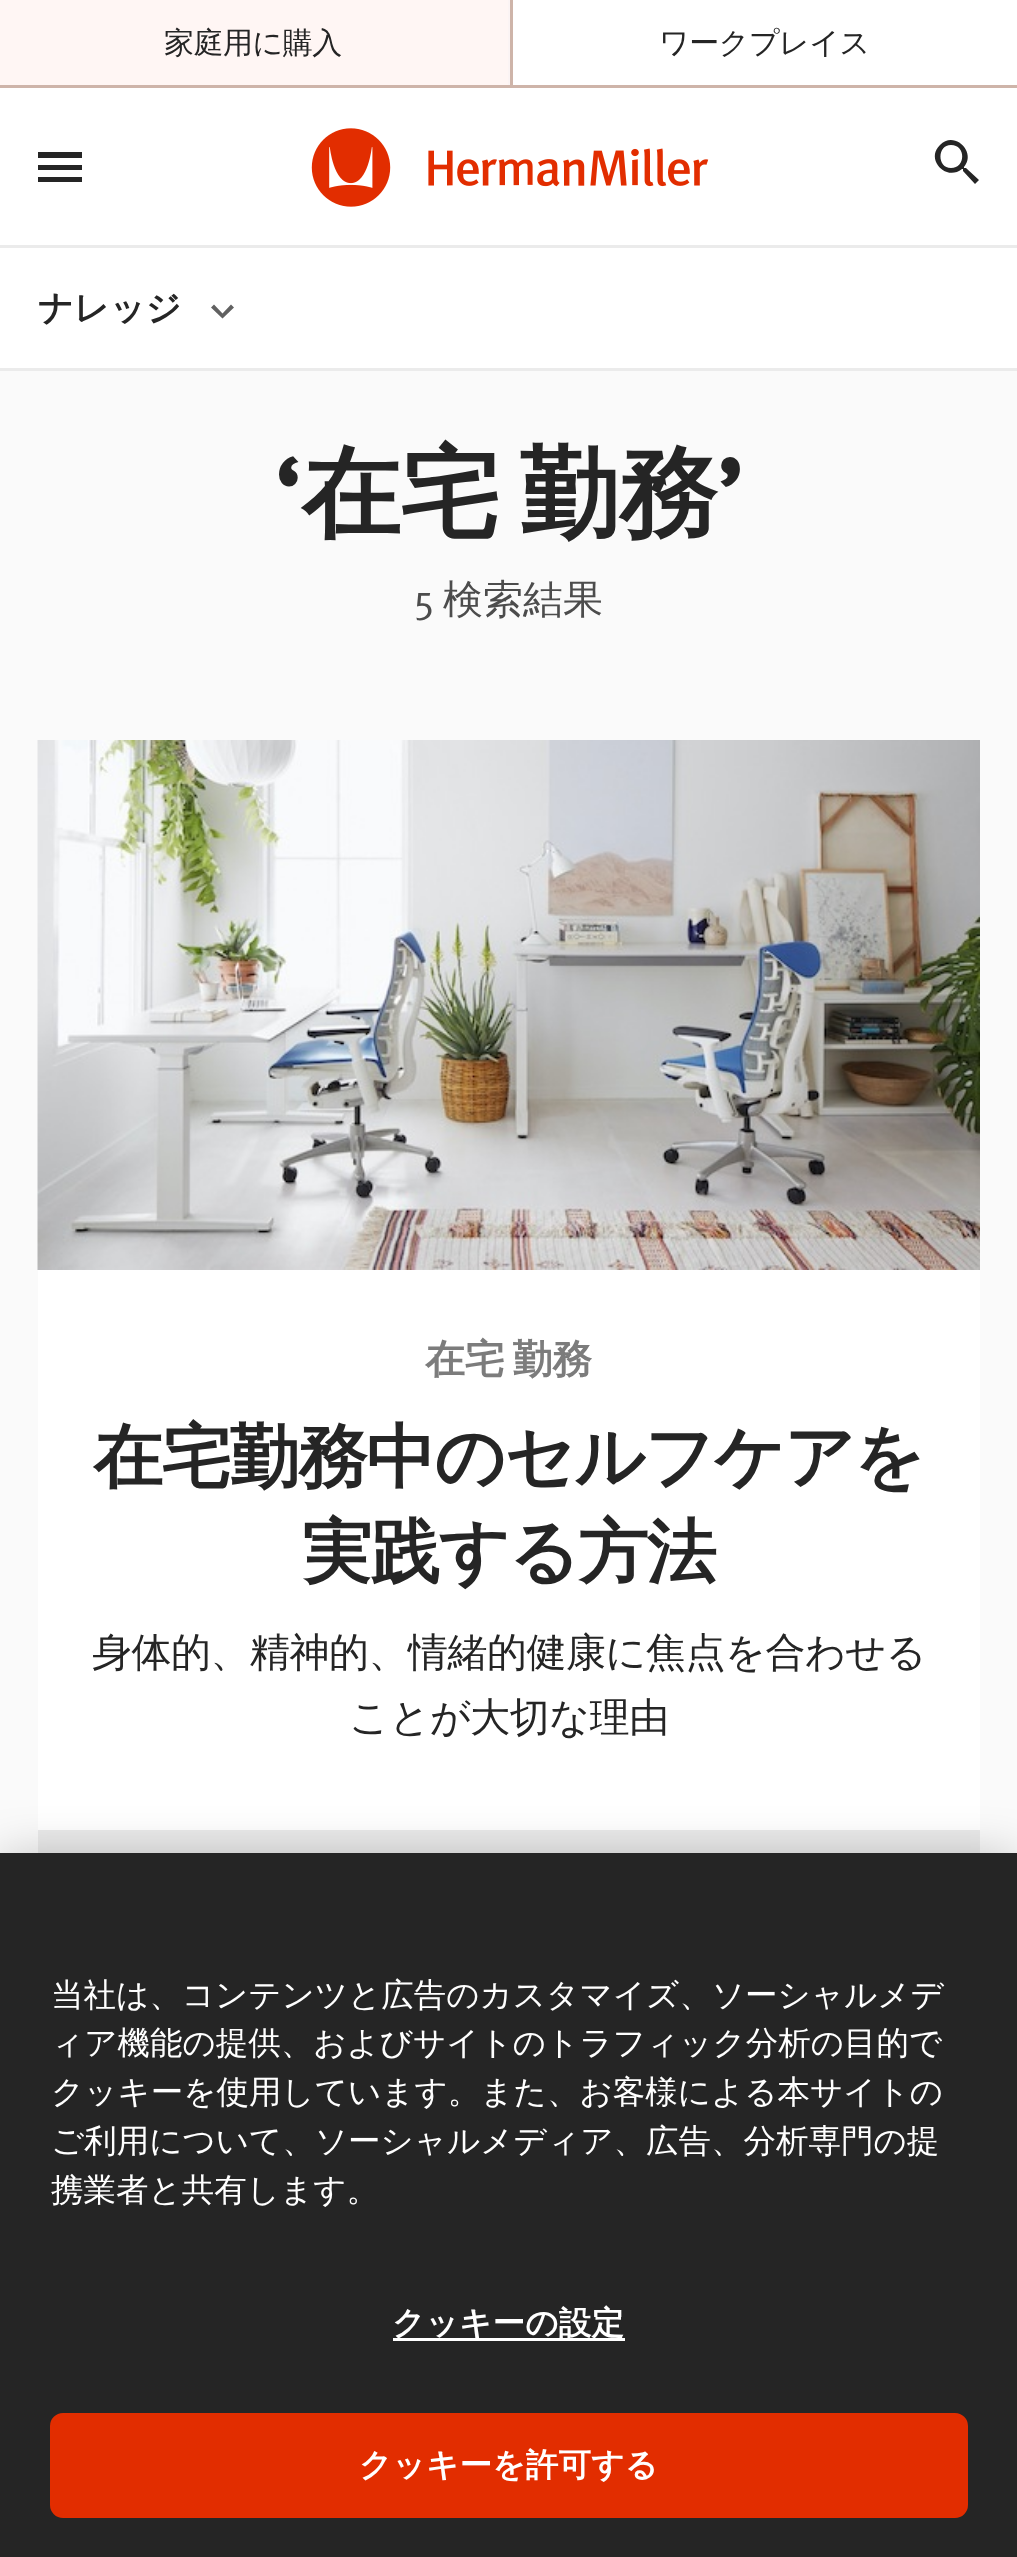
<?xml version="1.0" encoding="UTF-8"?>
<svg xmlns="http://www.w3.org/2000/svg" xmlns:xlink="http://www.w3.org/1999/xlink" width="1017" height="2557">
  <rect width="100%" height="100%" fill="#ffffff" />
  <rect width="508" height="85" fill="#fff6f4" />
  <rect y="85" width="1017" height="3" fill="#ceb4a9" />
  <rect x="508" width="2" height="85" fill="#fbf4f4" />
  <rect x="510" width="3" height="85" fill="#ceb4a9" />
  <rect y="245" width="1017" height="3" fill="#ebebeb" />
  <path d="M 38 152 h 44 v 6 h -44 z m 0 18 v -5 h 44 v 5 z m 0 12 v -5 h 44 v 5 z" fill="#252525" />
  <image x="311" y="128" width="398" height="79" xlink:href="image1.png" />
  <path d="M 951 168 c 15 0 15 -23 0 -23 c -14 0 -14 23 0 23 z m 15 0 l 13 12 l -4 4 l -12 -13 v -2 h -1 c -16 13 -37 -10 -22 -24 c 14 -15 37 7 24 22 v 1 z" fill="#252525" />
  <rect y="368" width="1017" height="3" fill="#ebebeb" />
  <path d="M 214 304.5 l 8.5 9 l 8.5 -9 l 3 3 l -11.5 11 l -11.5 -11 z" fill="#616161" />
  <rect y="371" width="1017" height="1482" fill="#fafafa" />
  <rect x="38" y="1270" width="942" height="560" fill="#ffffff" />
  <image x="37" y="740" width="943" height="530" xlink:href="image2.png" />
  <rect x="38" y="1830" width="942" height="23" fill="#ebebeb" />
  <rect y="1853" width="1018" height="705" fill="#000000" fill-opacity="0.2" filter="blur(22.5px)" />
  <rect y="1853" width="1017" height="704" fill="#252525" />
  <rect x="393" y="2338" width="232" height="3" fill="#ffffff" />
  <rect x="51.5" y="2414.5" width="915" height="102" rx="11.5" fill="#e22d00" stroke="#e22d00" stroke-width="3" />
  <text x="164" y="53" style="font-family: WenQuanYi Zen Hei; font-size: 30px; font-weight: 500; letter-spacing: -0.5px; fill: #252525">家庭用に購入</text>
  <text x="659" y="53" style="font-family: WenQuanYi Zen Hei; font-size: 30px; font-weight: 500; letter-spacing: -0.5px; fill: #252525">ワークプレイス</text>
  <text x="38" y="320" style="font-family: WenQuanYi Zen Hei; font-size: 35px; font-weight: bold; fill: #252525">ナレッジ</text>
  <text x="275" y="528" style="font-family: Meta; font-size: 100px; font-weight: bold; letter-spacing: -1.25px; fill: #252525">‘</text>
  <text x="301" y="528" word-spacing="-8" style="font-family: WenQuanYi Zen Hei; font-size: 100px; font-weight: bold; letter-spacing: -1.25px; fill: #252525">在宅 勤務</text>
  <text x="717" y="528" style="font-family: Meta; font-size: 100px; font-weight: bold; letter-spacing: -1.25px; fill: #252525">’</text>
  <text x="414" y="613" style="font-family: Meta; font-size: 40px; fill: #4c4c4c">5</text>
  <text x="443" y="613" style="font-family: WenQuanYi Zen Hei; font-size: 40px; font-weight: 500; fill: #4c4c4c">検索結果</text>
  <text x="425" y="1373" word-spacing="-3" style="font-family: WenQuanYi Zen Hei; font-size: 40px; font-weight: bold; letter-spacing: -0.5px; fill: #7c7c7c">在宅 勤務</text>
  <text x="93" y="1481" style="font-family: WenQuanYi Zen Hei; font-size: 70px; font-weight: bold; letter-spacing: -1.75px; fill: #252525">在宅勤務中のセルフケアを</text>
  <text x="302" y="1576" style="font-family: WenQuanYi Zen Hei; font-size: 70px; font-weight: bold; letter-spacing: -1.75px; fill: #252525">実践する方法</text>
  <text x="92" y="1666" style="font-family: WenQuanYi Zen Hei; font-size: 40px; font-weight: 500; letter-spacing: -0.5px; fill: #252525">身体的、精神的、情緒的健康に焦点を合わせる</text>
  <text x="349" y="1731" style="font-family: WenQuanYi Zen Hei; font-size: 40px; font-weight: 500; letter-spacing: -0.5px; fill: #252525">ことが大切な理由</text>
  <text x="51" y="2006" style="font-family: WenQuanYi Zen Hei; font-size: 32.5px; font-weight: 500; fill: #ffffff">当社は、コンテンツと広告のカスタマイズ、ソーシャルメデ</text>
  <text x="51" y="2054" style="font-family: WenQuanYi Zen Hei; font-size: 32.5px; font-weight: 500; fill: #ffffff">ィア機能の提供、およびサイトのトラフィック分析の目的で</text>
  <text x="51" y="2103" style="font-family: WenQuanYi Zen Hei; font-size: 32.5px; font-weight: 500; fill: #ffffff">クッキーを使用しています。また、お客様による本サイトの</text>
  <text x="51" y="2152" style="font-family: WenQuanYi Zen Hei; font-size: 32.5px; font-weight: 500; fill: #ffffff">ご利用について、ソーシャルメディア、広告、分析専門の提</text>
  <text x="51" y="2201" style="font-family: WenQuanYi Zen Hei; font-size: 32.5px; font-weight: 500; fill: #ffffff">携業者と共有します。</text>
  <text x="392" y="2334" style="font-family: WenQuanYi Zen Hei; font-size: 32.5px; font-weight: bold; letter-spacing: 0.25px; fill: #ffffff">クッキーの設定</text>
  <text x="359" y="2476" style="font-family: WenQuanYi Zen Hei; font-size: 32.5px; font-weight: bold; letter-spacing: 0.25px; fill: #ffffff">クッキーを許可する</text>
</svg>
